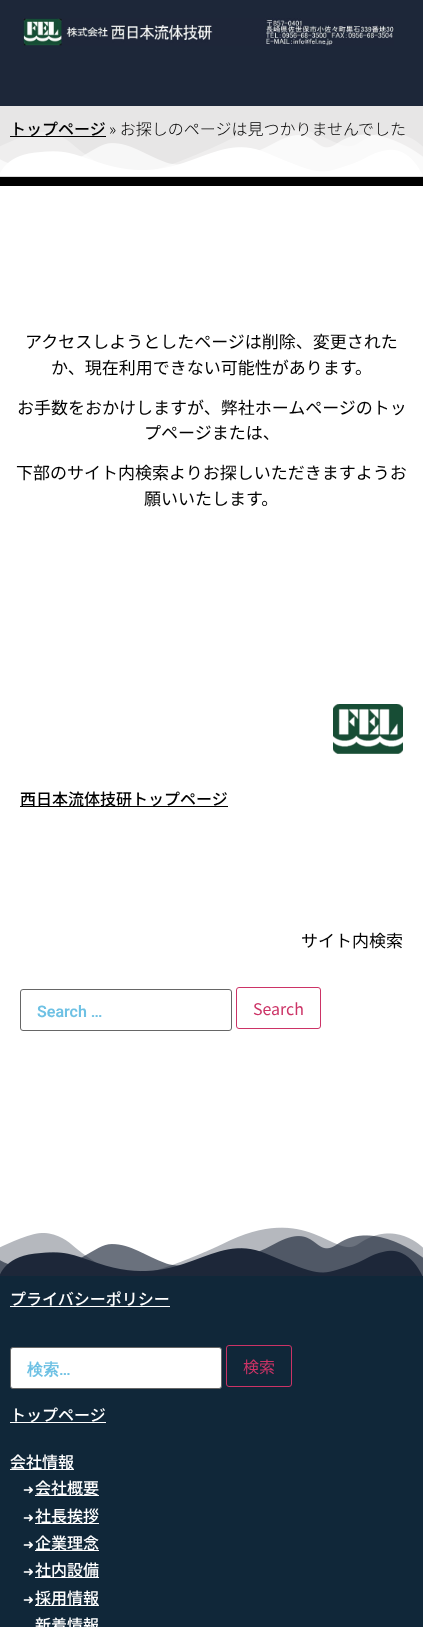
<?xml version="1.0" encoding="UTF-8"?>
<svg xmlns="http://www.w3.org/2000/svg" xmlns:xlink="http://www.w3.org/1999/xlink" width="423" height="1627">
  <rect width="100%" height="100%" fill="#ffffff" />
  <rect width="423" height="106" fill="#1d2739" />
  <image x="23" y="18" width="371" height="28" xlink:href="image1.png" />
  <rect y="106" width="423" height="70" fill="#e7e6e6" />
  <rect y="176" width="423" height="10" fill="#000000" />
  <image x="0" y="127" width="423" height="50" xlink:href="image2.png" />
  <rect x="10" y="136" width="96" height="1" fill="#000000" />
  <image x="333" y="704" width="70" height="50" xlink:href="image3.png" />
  <rect x="20" y="806" width="208" height="1" fill="#000000" />
  <rect x="20.5" y="989.5" width="211" height="41" rx="2.5" fill="none" stroke="#666666" />
  <rect x="236.5" y="987.5" width="84" height="41" rx="2.5" fill="none" stroke="#cc3366" />
  <image x="0" y="1227" width="423" height="49" xlink:href="image4.png" />
  <rect y="1276" width="423" height="351" fill="#102739" />
  <rect x="10" y="1306" width="160" height="1" fill="#ffffff" />
  <rect x="10.5" y="1347.5" width="211" height="41" rx="2.5" fill="#ffffff" stroke="#666666" />
  <rect x="226.5" y="1345.5" width="65" height="41" rx="2.5" fill="none" stroke="#cc3366" />
  <rect x="10" y="1422" width="96" height="1" fill="#ffffff" />
  <rect x="10" y="1469" width="64" height="1" fill="#ffffff" />
  <rect x="35" y="1495" width="64" height="1" fill="#ffffff" />
  <rect x="35" y="1523" width="64" height="1" fill="#ffffff" />
  <rect x="35" y="1550" width="64" height="1" fill="#ffffff" />
  <rect x="35" y="1577" width="64" height="1" fill="#ffffff" />
  <rect x="35" y="1605" width="64" height="1" fill="#ffffff" />
  <text x="10" y="135" style="font-family: Noto Sans JP; font-size: 16px; font-weight: 500; fill: #000000">トップページ</text>
  <text x="109" y="135" style="font-family: Noto Sans JP; font-size: 16px; font-weight: 300; fill: #000000">» お探しのページは見つかりませんでした</text>
  <text x="25" y="348" style="font-family: Noto Sans JP; font-size: 17px; fill: #000000">アクセスしようとしたページは削除、変更された</text>
  <text x="51" y="374" style="font-family: Noto Sans JP; font-size: 17px; fill: #000000">か、現在利用できない可能性があります。</text>
  <text x="17" y="414" style="font-family: Noto Sans JP; font-size: 17px; fill: #000000">お手数をおかけしますが、弊社ホームページのトッ</text>
  <text x="144" y="439" style="font-family: Noto Sans JP; font-size: 17px; fill: #000000">プページまたは、</text>
  <text x="16" y="479" style="font-family: Noto Sans JP; font-size: 17px; fill: #000000">下部のサイト内検索よりお探しいただきますようお</text>
  <text x="144" y="505" style="font-family: Noto Sans JP; font-size: 17px; fill: #000000">願いいたします。</text>
  <text x="20" y="805" style="font-family: Noto Sans JP; font-size: 16px; font-weight: 500; fill: #000000">西日本流体技研トップページ</text>
  <text x="301" y="947" style="font-family: Noto Sans JP; font-size: 17px; fill: #000000">サイト内検索</text>
  <text x="37" y="1017" style="font-family: Roboto; font-size: 16px; font-weight: 600; fill: #6ec1e4">Search …</text>
  <text x="253" y="1015" style="font-family: Noto Sans JP; font-size: 16px; fill: #cc3366">Search</text>
  <text x="10" y="1305" style="font-family: Noto Sans JP; font-size: 16px; font-weight: 500; fill: #ffffff">プライバシーポリシー</text>
  <text x="27" y="1375" style="font-family: WenQuanYi Zen Hei; font-size: 16px; font-weight: bold; fill: #6ec1e4">検索</text>
  <text x="59" y="1375" style="font-family: Roboto; font-size: 16px; font-weight: 600; fill: #6ec1e4">…</text>
  <text x="243" y="1373" style="font-family: Noto Sans JP; font-size: 16px; fill: #cc3366">検索</text>
  <text x="10" y="1421" style="font-family: Noto Sans JP; font-size: 16px; font-weight: 500; fill: #ffffff">トップページ</text>
  <text x="10" y="1468" style="font-family: Noto Sans JP; font-size: 16px; font-weight: 500; fill: #ffffff">会社情報</text>
  <text x="23" y="1494" style="font-family: DejaVu Sans; font-size: 13px; fill: #ffffff">➜</text>
  <text x="35" y="1494" style="font-family: Noto Sans JP; font-size: 16px; font-weight: 500; fill: #ffffff">会社概要</text>
  <text x="23" y="1522" style="font-family: DejaVu Sans; font-size: 13px; fill: #ffffff">➜</text>
  <text x="35" y="1522" style="font-family: Noto Sans JP; font-size: 16px; font-weight: 500; fill: #ffffff">社長挨拶</text>
  <text x="23" y="1549" style="font-family: DejaVu Sans; font-size: 13px; fill: #ffffff">➜</text>
  <text x="35" y="1549" style="font-family: Noto Sans JP; font-size: 16px; font-weight: 500; fill: #ffffff">企業理念</text>
  <text x="23" y="1576" style="font-family: DejaVu Sans; font-size: 13px; fill: #ffffff">➜</text>
  <text x="35" y="1576" style="font-family: Noto Sans JP; font-size: 16px; font-weight: 500; fill: #ffffff">社内設備</text>
  <text x="23" y="1604" style="font-family: DejaVu Sans; font-size: 13px; fill: #ffffff">➜</text>
  <text x="35" y="1604" style="font-family: Noto Sans JP; font-size: 16px; font-weight: 500; fill: #ffffff">採用情報</text>
  <text x="35" y="1631" style="font-family: Noto Sans JP; font-size: 16px; font-weight: 500; fill: #ffffff">新着情報</text>
</svg>
